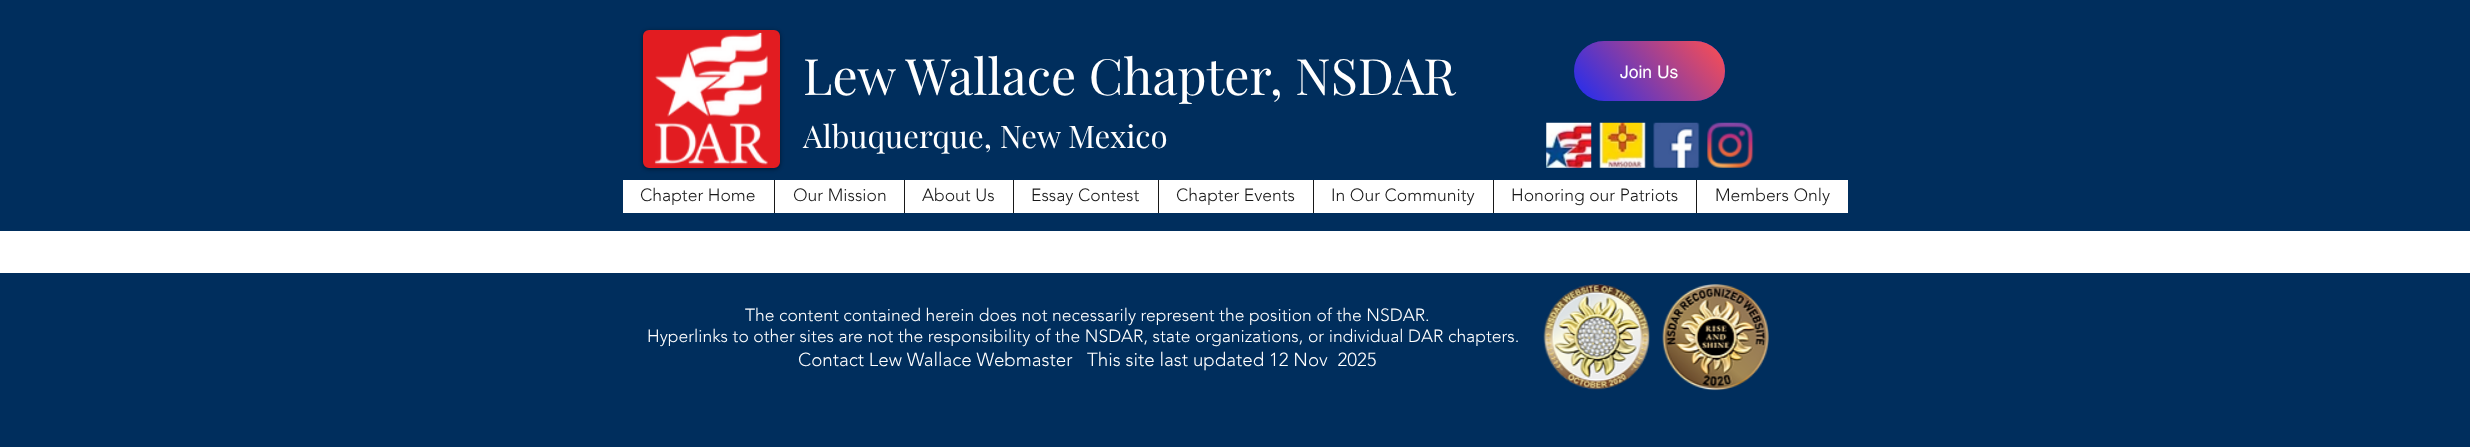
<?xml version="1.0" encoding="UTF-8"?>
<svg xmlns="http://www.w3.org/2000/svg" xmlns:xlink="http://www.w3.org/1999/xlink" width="2470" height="447">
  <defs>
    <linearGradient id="g1" gradientUnits="userSpaceOnUse" x1="1707" y1="21" x2="1591" y2="122"><stop offset="0" stop-color="#ff4f4f" /><stop offset="1" stop-color="#ff4f4f" stop-opacity="0" /></linearGradient>
  </defs>
  <rect width="100%" height="100%" fill="#ffffff" />
  <rect width="2470" height="231" fill="#002e5d" />
  <rect x="643" y="31" width="137" height="138" rx="6" fill="#000000" fill-opacity="0.5" filter="blur(2px)" />
  <rect x="644.5" y="31.5" width="134" height="135" rx="4.5" fill="#e21c21" stroke="#e21c21" stroke-width="3" />
  <image x="654" y="32" width="114" height="133" xlink:href="image1.png" />
  <rect x="1574" y="41" width="151" height="60" rx="30" fill="#1d2cf3" />
  <rect x="1574" y="41" width="151" height="60" rx="30" fill="url(#g1)" />
  <image x="1546" y="122" width="46" height="46" xlink:href="image2.png" />
  <image x="1599" y="122" width="47" height="46" xlink:href="image3.png" />
  <image x="1653" y="122" width="47" height="46" xlink:href="image4.png" />
  <image x="1707" y="122" width="47" height="46" xlink:href="image5.png" />
  <rect x="623" y="180" width="1225" height="33" fill="#ffffff" />
  <rect x="774" y="180" width="1" height="33" fill="#181818" />
  <rect x="904" y="180" width="1" height="33" fill="#181818" />
  <rect x="1013" y="180" width="1" height="33" fill="#181818" />
  <rect x="1158" y="180" width="1" height="33" fill="#181818" />
  <rect x="1313" y="180" width="1" height="33" fill="#181818" />
  <rect x="1493" y="180" width="1" height="33" fill="#181818" />
  <rect x="1696" y="180" width="1" height="33" fill="#181818" />
  <rect y="273" width="2470" height="174" fill="#002e5d" />
  <image x="1543" y="284" width="107" height="106" xlink:href="image6.png" />
  <image x="1662" y="284" width="107" height="107" xlink:href="image7.png" />
  <text x="803" y="95" style="font-family: Playfair Display; font-size: 50px; fill: #ffffff">Lew Wallace Chapter, NSDAR</text>
  <text x="803" y="148" style="font-family: Playfair Display; font-size: 31.25px; fill: #ffffff">Albuquerque, New Mexico</text>
  <text x="1620" y="78" style="font-family: helvetica; font-size: 17.5px; fill: #ffffff">Join Us</text>
  <text x="640" y="201" style="font-family: 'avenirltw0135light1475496'; font-size: 17.5px; font-weight: 300; fill: #181818">Chapter Home</text>
  <text x="793" y="201" style="font-family: 'avenirltw0135light1475496'; font-size: 17.5px; font-weight: 300; fill: #181818">Our Mission</text>
  <text x="922" y="201" style="font-family: 'avenirltw0135light1475496'; font-size: 17.5px; font-weight: 300; fill: #181818">About Us</text>
  <text x="1031" y="201" style="font-family: 'avenirltw0135light1475496'; font-size: 17.5px; font-weight: 300; fill: #181818">Essay Contest</text>
  <text x="1176" y="201" style="font-family: 'avenirltw0135light1475496'; font-size: 17.5px; font-weight: 300; fill: #181818">Chapter Events</text>
  <text x="1331" y="201" style="font-family: 'avenirltw0135light1475496'; font-size: 17.5px; font-weight: 300; fill: #181818">In Our Community</text>
  <text x="1511" y="201" style="font-family: 'avenirltw0135light1475496'; font-size: 17.5px; font-weight: 300; fill: #181818">Honoring our Patriots</text>
  <text x="1715" y="201" style="font-family: 'avenirltw0135light1475496'; font-size: 17.5px; font-weight: 300; fill: #181818">Members Only</text>
  <text x="745" y="321" style="font-family: 'avenirltw0135light1475496'; font-size: 17.5px; font-weight: 300; fill: #ffffff">The content contained herein does not necessarily represent the position of the NSDAR.</text>
  <text x="647" y="342" style="font-family: 'avenirltw0135light1475496'; font-size: 17.5px; font-weight: 300; fill: #ffffff">Hyperlinks to other sites are not the responsibility of the NSDAR, state organizations, or individual DAR chapters.</text>
  <text x="798" y="366" style="font-family: 'avenirltw0135light1475496'; font-size: 18.75px; font-weight: 300; fill: #ffffff">Contact Lew Wallace Webmaster</text>
  <text x="1087" y="366" style="font-family: 'avenirltw0135light1475496'; font-size: 18.75px; font-weight: 300; fill: #ffffff" xml:space="preserve">This site last updated 12 Nov  2025</text>
</svg>
